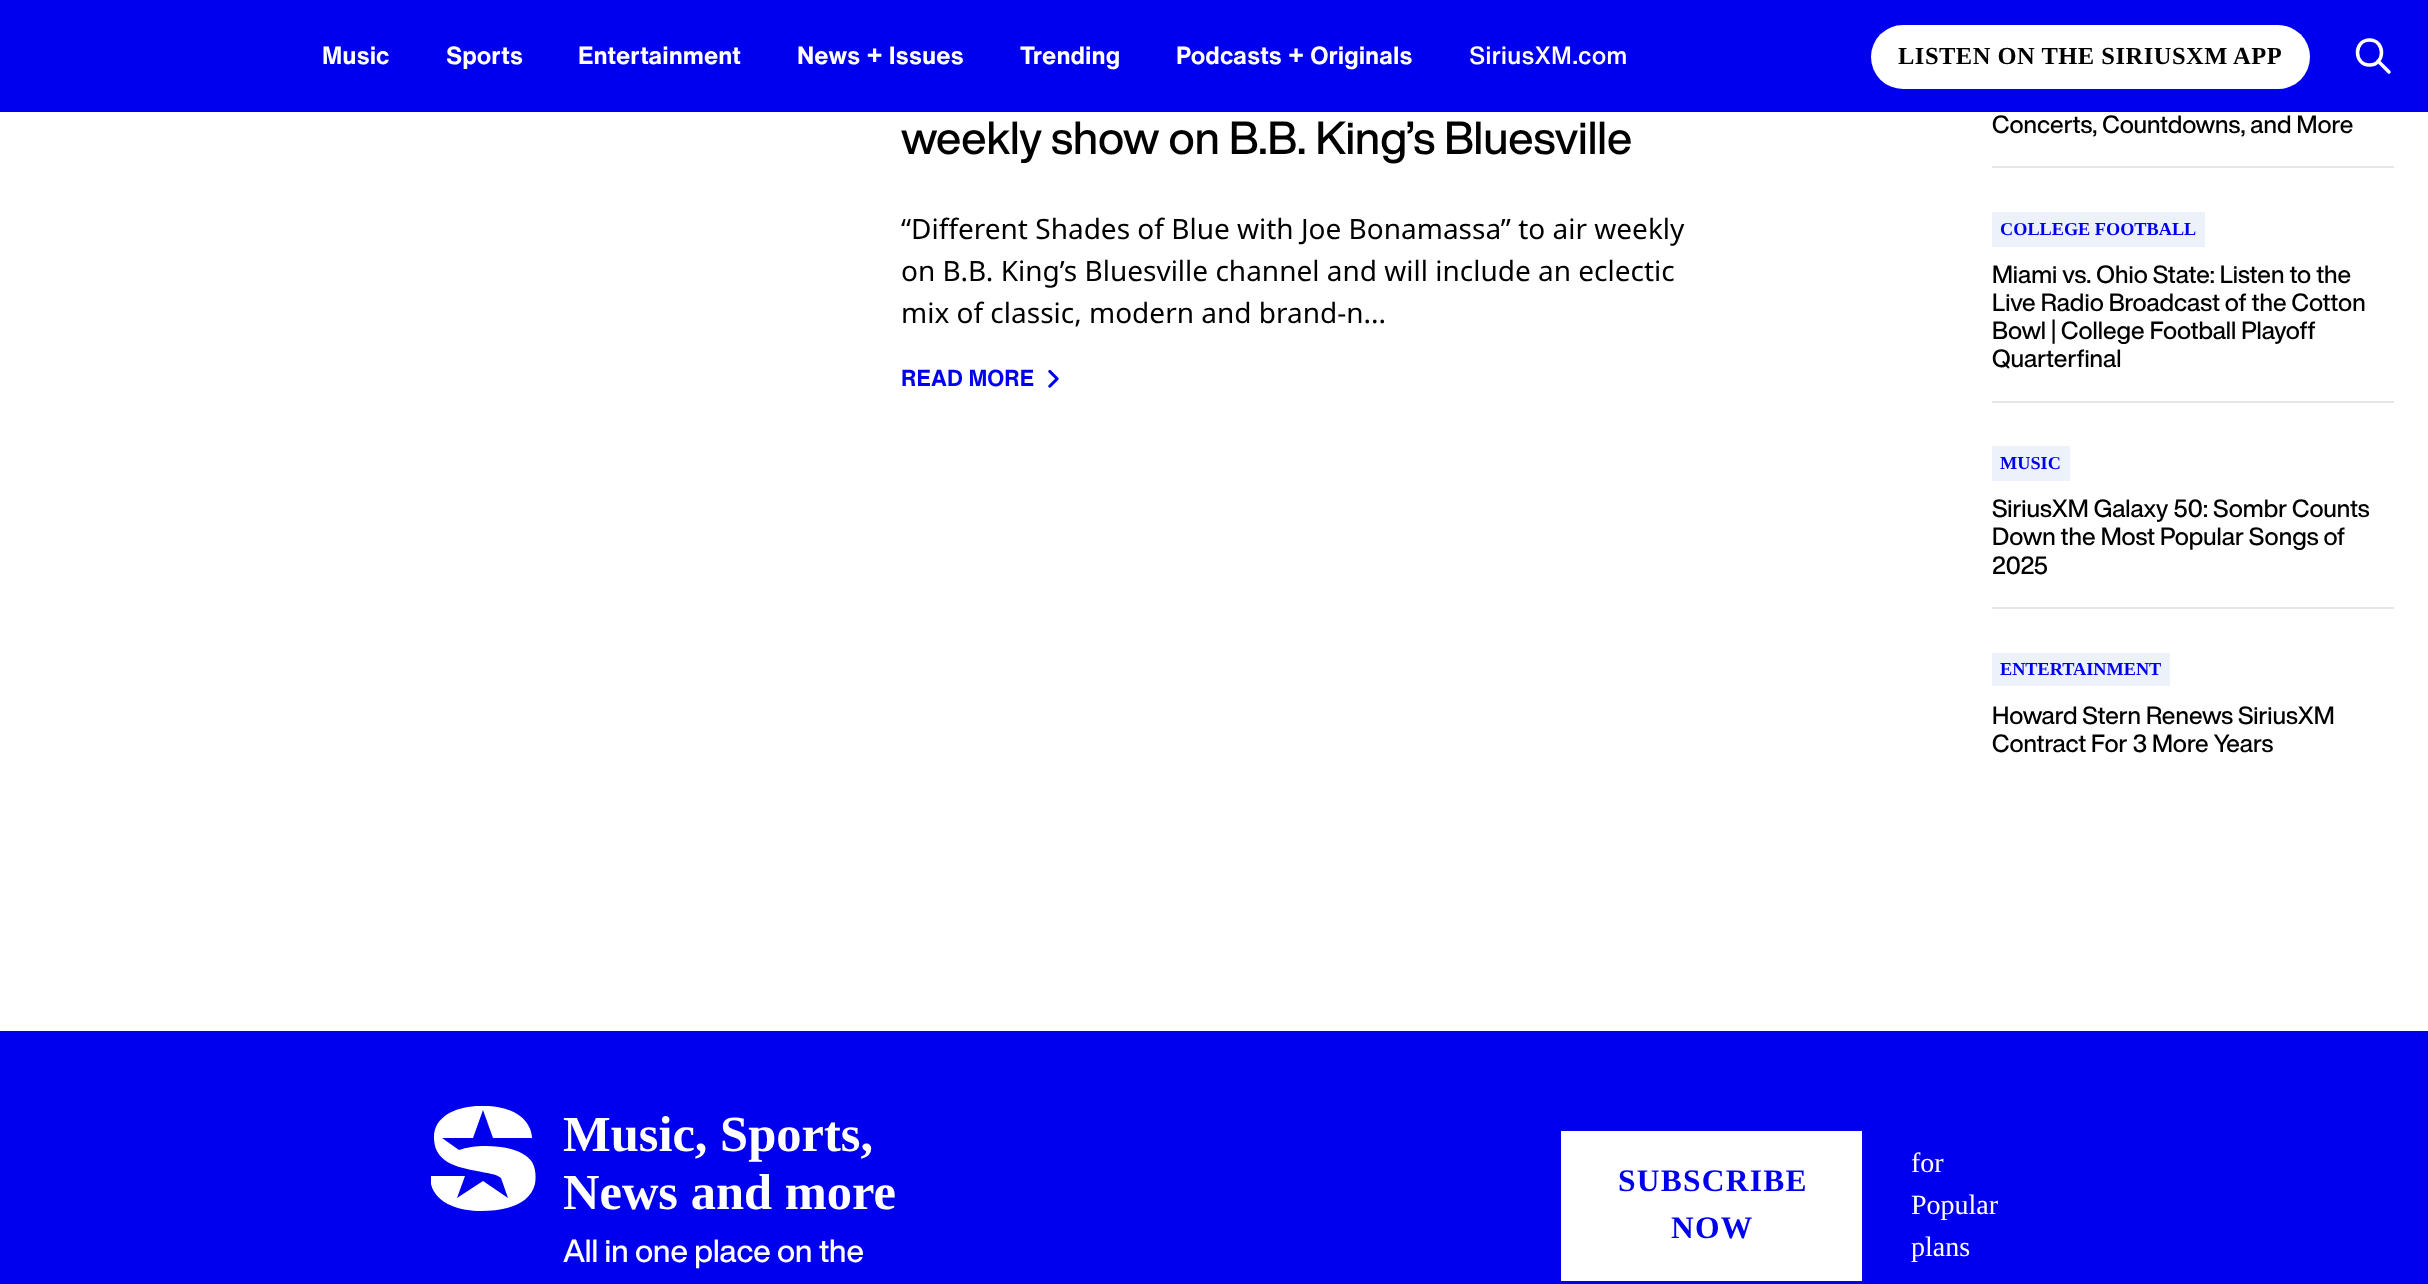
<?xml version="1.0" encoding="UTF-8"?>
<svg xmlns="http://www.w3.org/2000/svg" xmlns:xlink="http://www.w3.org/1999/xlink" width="2428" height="1284">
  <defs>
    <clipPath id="clip1"><rect x="431" y="1106" width="105" height="105" /></clipPath>
  </defs>
  <rect width="100%" height="100%" fill="#ffffff" />
  <rect width="2428" height="112" fill="#0000ef" />
  <rect x="1871" y="25" width="439" height="64" rx="32" fill="#ffffff" />
  <path d="M 2369.5 65 c 16 0 16 -25 0 -25 c -16 0 -16 25 0 25 z m 19.5 7 l -11 -11" fill="none" stroke="#ffffff" stroke-width="3.5" stroke-linecap="round" stroke-linejoin="round" />
  <image x="1048" y="369" width="11" height="19" xlink:href="image1.png" />
  <rect x="1992" y="166" width="402" height="2" fill="#e6e6e6" />
  <rect x="1992" y="401" width="402" height="2" fill="#e6e6e6" />
  <rect x="1992" y="212" width="213" height="35" fill="#ecf1fa" />
  <rect x="1992" y="607" width="402" height="2" fill="#e6e6e6" />
  <rect x="1992" y="446" width="78" height="35" fill="#ecf1fa" />
  <rect x="1992" y="653" width="178" height="33" fill="#ecf1fa" />
  <rect y="1031" width="2428" height="253" fill="#0000ef" />
  <g clip-path="url(#clip1)">
    <path d="M 532 1162 c 4 7 4 15 3 22 c -6 23 -34 27 -54 27 c -22 0 -51 -8 -51 -35 h 35 l -8 22 l 26 -17 l 25 17 l -7 -20 c -4 -4 -15 -5 -19 -6 c -20 -4 -47 -7 -48 -33 c -2 -38 65 -40 86 -23 c 7 5 12 14 12 22 h -39 l -10 -28 l -10 28 h -31 l 17 12 c 19 -7 61 -6 73 12 z" fill="#ffffff" />
  </g>
  <rect x="1561" y="1131" width="301" height="150" fill="#ffffff" />
  <text x="322" y="64" style="font-family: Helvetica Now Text; font-size: 24.5px; font-weight: bold; fill: #ffffff">Music</text>
  <text x="446" y="64" style="font-family: Helvetica Now Text; font-size: 24.5px; font-weight: bold; fill: #ffffff">Sports</text>
  <text x="578" y="64" style="font-family: Helvetica Now Text; font-size: 24.5px; font-weight: bold; fill: #ffffff">Entertainment</text>
  <text x="797" y="64" style="font-family: Helvetica Now Text; font-size: 24.5px; font-weight: bold; fill: #ffffff">News + Issues</text>
  <text x="1020" y="64" style="font-family: Helvetica Now Text; font-size: 24.5px; font-weight: bold; fill: #ffffff">Trending</text>
  <text x="1176" y="64" style="font-family: Helvetica Now Text; font-size: 24.5px; font-weight: bold; fill: #ffffff">Podcasts + Originals</text>
  <text x="1469" y="64" style="font-family: Helvetica Now Text; font-size: 24.5px; font-weight: 500; fill: #ffffff">SiriusXM.com</text>
  <text x="1898" y="64" style="font-family: Liberation Serif; font-size: 24.5px; font-weight: bold; letter-spacing: 0.5px; fill: #000000">LISTEN ON THE SIRIUSXM APP</text>
  <text x="901" y="154" style="font-family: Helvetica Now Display; font-size: 45.5px; font-weight: 500; fill: #000000">weekly show on B.B. King’s Bluesville</text>
  <text x="901" y="239" style="font-family: Noto Sans; font-size: 28px; fill: #000000">“Different Shades of Blue with Joe Bonamassa” to air weekly</text>
  <text x="901" y="281" style="font-family: Noto Sans; font-size: 28px; fill: #000000">on B.B. King’s Bluesville channel and will include an eclectic</text>
  <text x="901" y="323" style="font-family: Noto Sans; font-size: 28px; fill: #000000">mix of classic, modern and brand-n...</text>
  <text x="901" y="386" style="font-family: Helvetica Now Text; font-size: 22.75px; font-weight: bold; fill: #0000ef">READ MORE</text>
  <text x="1992" y="133" style="font-family: Helvetica Now Display; font-size: 24.5px; font-weight: 500; fill: #000000">Concerts, Countdowns, and More</text>
  <text x="2000" y="235" style="font-family: Liberation Serif; font-size: 18.25px; font-weight: bold; fill: #0000ef">COLLEGE FOOTBALL</text>
  <text x="1992" y="283" style="font-family: Helvetica Now Display; font-size: 24.5px; font-weight: 500; fill: #000000">Miami vs. Ohio State: Listen to the</text>
  <text x="1992" y="311" style="font-family: Helvetica Now Display; font-size: 24.5px; font-weight: 500; fill: #000000">Live Radio Broadcast of the Cotton</text>
  <text x="1992" y="339" style="font-family: Helvetica Now Display; font-size: 24.5px; font-weight: 500; fill: #000000">Bowl | College Football Playoff</text>
  <text x="1992" y="367" style="font-family: Helvetica Now Display; font-size: 24.5px; font-weight: 500; fill: #000000">Quarterfinal</text>
  <text x="2000" y="469" style="font-family: Liberation Serif; font-size: 18.25px; font-weight: bold; fill: #0000ef">MUSIC</text>
  <text x="1992" y="517" style="font-family: Helvetica Now Display; font-size: 24.5px; font-weight: 500; fill: #000000">SiriusXM Galaxy 50: Sombr Counts</text>
  <text x="1992" y="545" style="font-family: Helvetica Now Display; font-size: 24.5px; font-weight: 500; fill: #000000">Down the Most Popular Songs of</text>
  <text x="1992" y="574" style="font-family: Helvetica Now Display; font-size: 24.5px; font-weight: 500; fill: #000000">2025</text>
  <text x="2000" y="675" style="font-family: Liberation Serif; font-size: 18.25px; font-weight: bold; fill: #0000ef">ENTERTAINMENT</text>
  <text x="1992" y="724" style="font-family: Helvetica Now Display; font-size: 24.5px; font-weight: 500; fill: #000000">Howard Stern Renews SiriusXM</text>
  <text x="1992" y="752" style="font-family: Helvetica Now Display; font-size: 24.5px; font-weight: 500; fill: #000000">Contract For 3 More Years</text>
  <text x="563" y="1151" style="font-family: Liberation Serif; font-size: 50.5px; font-weight: bold; fill: #ffffff">Music, Sports,</text>
  <text x="563" y="1209" style="font-family: Liberation Serif; font-size: 50.5px; font-weight: bold; fill: #ffffff">News and more</text>
  <text x="563" y="1262" style="font-family: Helvetica Now Display; font-size: 31.5px; font-weight: 500; fill: #ffffff">All in one place on the</text>
  <text x="1618" y="1191" style="font-family: Liberation Serif; font-size: 31.5px; font-weight: bold; letter-spacing: 1.25px; fill: #0000ef">SUBSCRIBE</text>
  <text x="1671" y="1238" style="font-family: Liberation Serif; font-size: 31.5px; font-weight: bold; letter-spacing: 1.25px; fill: #0000ef">NOW</text>
  <text x="1911" y="1172" style="font-family: Liberation Serif; font-size: 28px; fill: #ffffff">for</text>
  <text x="1911" y="1214" style="font-family: Liberation Serif; font-size: 28px; fill: #ffffff">Popular</text>
  <text x="1911" y="1256" style="font-family: Liberation Serif; font-size: 28px; fill: #ffffff">plans</text>
</svg>
